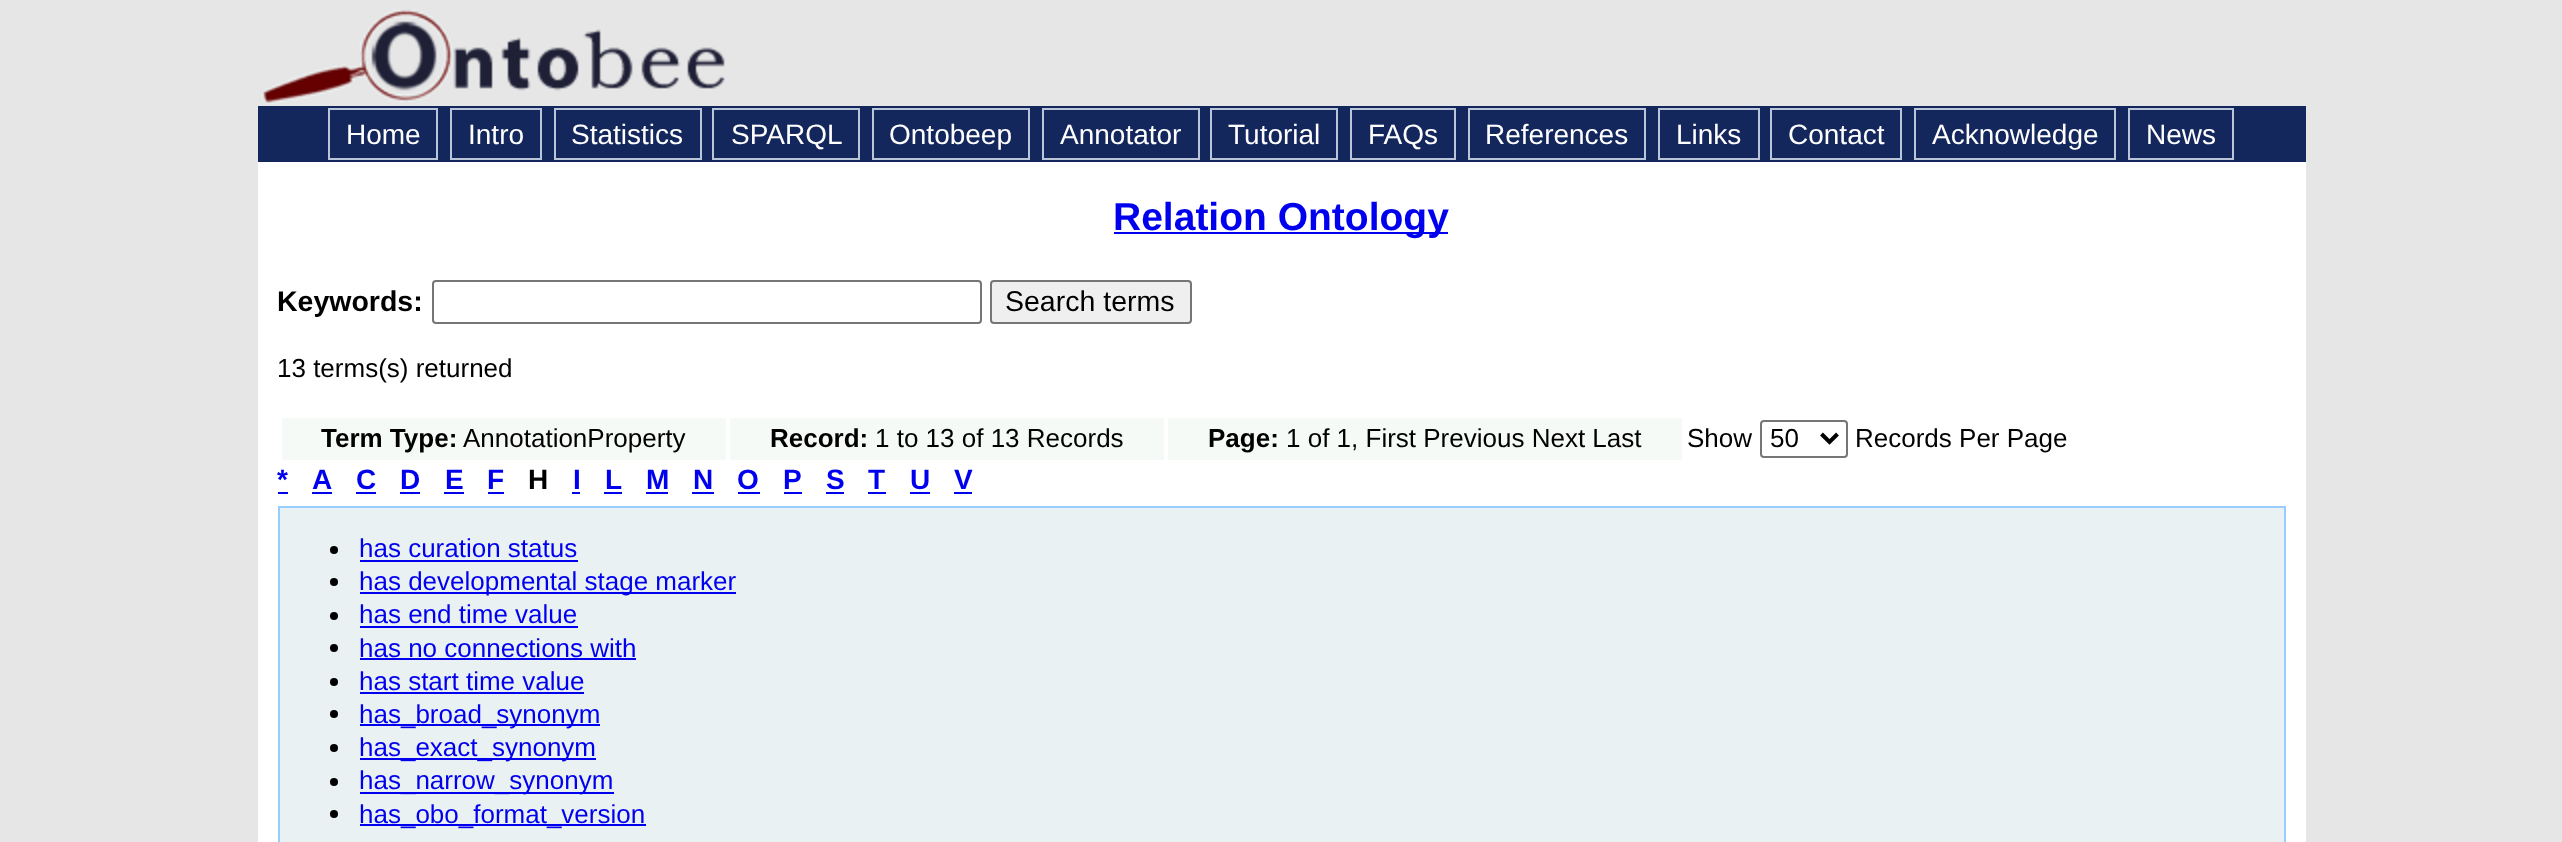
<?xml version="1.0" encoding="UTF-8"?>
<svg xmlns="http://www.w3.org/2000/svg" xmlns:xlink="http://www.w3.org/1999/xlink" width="2562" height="842">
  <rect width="100%" height="100%" fill="#e6e6e6" />
  <image x="262" y="9" width="463" height="95" xlink:href="image1.png" />
  <rect x="258" y="106" width="2048" height="56" fill="#14275d" />
  <rect x="329" y="109" width="108" height="50" fill="none" stroke="#bac5d7" stroke-width="2" />
  <rect x="451" y="109" width="90" height="50" fill="none" stroke="#bac5d7" stroke-width="2" />
  <rect x="555" y="109" width="146" height="50" fill="none" stroke="#bac5d7" stroke-width="2" />
  <rect x="713" y="109" width="146" height="50" fill="none" stroke="#bac5d7" stroke-width="2" />
  <rect x="873" y="109" width="156" height="50" fill="none" stroke="#bac5d7" stroke-width="2" />
  <rect x="1043" y="109" width="156" height="50" fill="none" stroke="#bac5d7" stroke-width="2" />
  <rect x="1211" y="109" width="126" height="50" fill="none" stroke="#bac5d7" stroke-width="2" />
  <rect x="1351" y="109" width="104" height="50" fill="none" stroke="#bac5d7" stroke-width="2" />
  <rect x="1469" y="109" width="176" height="50" fill="none" stroke="#bac5d7" stroke-width="2" />
  <rect x="1659" y="109" width="100" height="50" fill="none" stroke="#bac5d7" stroke-width="2" />
  <rect x="1771" y="109" width="130" height="50" fill="none" stroke="#bac5d7" stroke-width="2" />
  <rect x="1915" y="109" width="200" height="50" fill="none" stroke="#bac5d7" stroke-width="2" />
  <rect x="2129" y="109" width="104" height="50" fill="none" stroke="#bac5d7" stroke-width="2" />
  <rect x="258" y="162" width="2048" height="680" fill="#ffffff" />
  <rect x="1114" y="232" width="334" height="2" fill="#0000ee" />
  <rect x="433" y="281" width="548" height="42" rx="3" fill="none" stroke="#767676" stroke-width="2" />
  <rect x="991" y="281" width="200" height="42" rx="3" fill="#efefef" stroke="#767676" stroke-width="2" />
  <rect x="282" y="418" width="444" height="42" fill="#f5faf7" />
  <rect x="730" y="418" width="434" height="42" fill="#f5faf7" />
  <rect x="1168" y="418" width="514" height="42" fill="#f5faf7" />
  <rect x="1761" y="421" width="86" height="36" rx="3" fill="none" stroke="#767676" stroke-width="2" />
  <path d="M 1821.5 434 l 8 8 l 8 -8" fill="none" stroke="#000000" stroke-width="4" />
  <rect x="278" y="492" width="10" height="2" fill="#0000ee" />
  <rect x="312" y="492" width="20" height="2" fill="#0000ee" />
  <rect x="356" y="492" width="20" height="2" fill="#0000ee" />
  <rect x="400" y="492" width="20" height="2" fill="#0000ee" />
  <rect x="444" y="492" width="20" height="2" fill="#0000ee" />
  <rect x="488" y="492" width="16" height="2" fill="#0000ee" />
  <rect x="572" y="492" width="8" height="2" fill="#0000ee" />
  <rect x="604" y="492" width="18" height="2" fill="#0000ee" />
  <rect x="646" y="492" width="22" height="2" fill="#0000ee" />
  <rect x="692" y="492" width="22" height="2" fill="#0000ee" />
  <rect x="738" y="492" width="22" height="2" fill="#0000ee" />
  <rect x="784" y="492" width="18" height="2" fill="#0000ee" />
  <rect x="826" y="492" width="18" height="2" fill="#0000ee" />
  <rect x="868" y="492" width="18" height="2" fill="#0000ee" />
  <rect x="910" y="492" width="20" height="2" fill="#0000ee" />
  <rect x="954" y="492" width="18" height="2" fill="#0000ee" />
  <rect x="279" y="507" width="2006" height="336" fill="#eaf1f2" stroke="#99ccff" stroke-width="2" />
  <circle cx="334" cy="550" r="4" fill="#000000" />
  <rect x="360" y="560" width="218" height="2" fill="#0000ee" />
  <circle cx="334" cy="582" r="4" fill="#000000" />
  <rect x="360" y="592" width="376" height="2" fill="#0000ee" />
  <circle cx="334" cy="616" r="4" fill="#000000" />
  <rect x="360" y="626" width="218" height="2" fill="#0000ee" />
  <circle cx="334" cy="648" r="4" fill="#000000" />
  <rect x="360" y="658" width="276" height="2" fill="#0000ee" />
  <circle cx="334" cy="682" r="4" fill="#000000" />
  <rect x="360" y="692" width="224" height="2" fill="#0000ee" />
  <circle cx="334" cy="714" r="4" fill="#000000" />
  <rect x="360" y="724" width="240" height="2" fill="#0000ee" />
  <circle cx="334" cy="748" r="4" fill="#000000" />
  <rect x="360" y="758" width="236" height="2" fill="#0000ee" />
  <circle cx="334" cy="782" r="4" fill="#000000" />
  <rect x="360" y="792" width="254" height="2" fill="#0000ee" />
  <circle cx="334" cy="814" r="4" fill="#000000" />
  <rect x="360" y="824" width="286" height="2" fill="#0000ee" />
  <text x="346" y="144" style="font-family: Liberation Sans; font-size: 28px; fill: #ffffff">Home</text>
  <text x="468" y="144" style="font-family: Liberation Sans; font-size: 28px; fill: #ffffff">Intro</text>
  <text x="571" y="144" style="font-family: Liberation Sans; font-size: 28px; fill: #ffffff">Statistics</text>
  <text x="731" y="144" style="font-family: Liberation Sans; font-size: 28px; fill: #ffffff">SPARQL</text>
  <text x="889" y="144" style="font-family: Liberation Sans; font-size: 28px; fill: #ffffff">Ontobeep</text>
  <text x="1060" y="144" style="font-family: Liberation Sans; font-size: 28px; fill: #ffffff">Annotator</text>
  <text x="1228" y="144" style="font-family: Liberation Sans; font-size: 28px; fill: #ffffff">Tutorial</text>
  <text x="1368" y="144" style="font-family: Liberation Sans; font-size: 28px; fill: #ffffff">FAQs</text>
  <text x="1485" y="144" style="font-family: Liberation Sans; font-size: 28px; fill: #ffffff">References</text>
  <text x="1676" y="144" style="font-family: Liberation Sans; font-size: 28px; fill: #ffffff">Links</text>
  <text x="1788" y="144" style="font-family: Liberation Sans; font-size: 28px; fill: #ffffff">Contact</text>
  <text x="1932" y="144" style="font-family: Liberation Sans; font-size: 28px; fill: #ffffff">Acknowledge</text>
  <text x="2146" y="144" style="font-family: Liberation Sans; font-size: 28px; fill: #ffffff">News</text>
  <text x="1113" y="230" style="font-family: Liberation Sans; font-size: 39px; font-weight: bold; fill: #0000ee">Relation Ontology</text>
  <text x="277" y="311" style="font-family: Liberation Sans; font-size: 28.5px; font-weight: bold; fill: #000000">Keywords:</text>
  <text x="1005" y="311" style="font-family: Liberation Sans; font-size: 28.5px; fill: #000000">Search terms</text>
  <text x="277" y="377" style="font-family: Liberation Sans; font-size: 26px; fill: #000000">13 terms(s) returned</text>
  <text x="321" y="447" style="font-family: Liberation Sans; font-size: 26px; font-weight: bold; fill: #000000">Term Type:</text>
  <text x="463" y="447" style="font-family: Liberation Sans; font-size: 26px; fill: #000000">AnnotationProperty</text>
  <text x="770" y="447" style="font-family: Liberation Sans; font-size: 26px; font-weight: bold; fill: #000000">Record:</text>
  <text x="875" y="447" style="font-family: Liberation Sans; font-size: 26px; fill: #000000">1 to 13 of 13 Records</text>
  <text x="1208" y="447" style="font-family: Liberation Sans; font-size: 26px; font-weight: bold; fill: #000000">Page:</text>
  <text x="1286" y="447" style="font-family: Liberation Sans; font-size: 26px; fill: #000000">1 of 1, First Previous Next Last</text>
  <text x="1687" y="447" style="font-family: Liberation Sans; font-size: 26px; fill: #000000">Show</text>
  <text x="1770" y="447" style="font-family: Liberation Sans; font-size: 26px; fill: #000000">50</text>
  <text x="1855" y="447" style="font-family: Liberation Sans; font-size: 26px; fill: #000000">Records Per Page</text>
  <text x="277" y="489" style="font-family: Liberation Sans; font-size: 28px; font-weight: bold; fill: #0000ee">*</text>
  <text x="312" y="489" style="font-family: Liberation Sans; font-size: 28px; font-weight: bold; fill: #0000ee">A</text>
  <text x="356" y="489" style="font-family: Liberation Sans; font-size: 28px; font-weight: bold; fill: #0000ee">C</text>
  <text x="400" y="489" style="font-family: Liberation Sans; font-size: 28px; font-weight: bold; fill: #0000ee">D</text>
  <text x="445" y="489" style="font-family: Liberation Sans; font-size: 28px; font-weight: bold; fill: #0000ee">E</text>
  <text x="487" y="489" style="font-family: Liberation Sans; font-size: 28px; font-weight: bold; fill: #0000ee">F</text>
  <text x="528" y="489" style="font-family: Liberation Sans; font-size: 28px; font-weight: bold; fill: #000000">H</text>
  <text x="573" y="489" style="font-family: Liberation Sans; font-size: 28px; font-weight: bold; fill: #0000ee">I</text>
  <text x="605" y="489" style="font-family: Liberation Sans; font-size: 28px; font-weight: bold; fill: #0000ee">L</text>
  <text x="646" y="489" style="font-family: Liberation Sans; font-size: 28px; font-weight: bold; fill: #0000ee">M</text>
  <text x="693" y="489" style="font-family: Liberation Sans; font-size: 28px; font-weight: bold; fill: #0000ee">N</text>
  <text x="737" y="489" style="font-family: Liberation Sans; font-size: 28px; font-weight: bold; fill: #0000ee">O</text>
  <text x="783" y="489" style="font-family: Liberation Sans; font-size: 28px; font-weight: bold; fill: #0000ee">P</text>
  <text x="826" y="489" style="font-family: Liberation Sans; font-size: 28px; font-weight: bold; fill: #0000ee">S</text>
  <text x="868" y="489" style="font-family: Liberation Sans; font-size: 28px; font-weight: bold; fill: #0000ee">T</text>
  <text x="910" y="489" style="font-family: Liberation Sans; font-size: 28px; font-weight: bold; fill: #0000ee">U</text>
  <text x="954" y="489" style="font-family: Liberation Sans; font-size: 28px; font-weight: bold; fill: #0000ee">V</text>
  <text x="359" y="557" style="font-family: Liberation Sans; font-size: 26px; fill: #0000ee">has curation status</text>
  <text x="359" y="590" style="font-family: Liberation Sans; font-size: 26px; fill: #0000ee">has developmental stage marker</text>
  <text x="359" y="623" style="font-family: Liberation Sans; font-size: 26px; fill: #0000ee">has end time value</text>
  <text x="359" y="657" style="font-family: Liberation Sans; font-size: 26px; fill: #0000ee">has no connections with</text>
  <text x="359" y="690" style="font-family: Liberation Sans; font-size: 26px; fill: #0000ee">has start time value</text>
  <text x="359" y="723" style="font-family: Liberation Sans; font-size: 26px; fill: #0000ee">has_broad_synonym</text>
  <text x="359" y="756" style="font-family: Liberation Sans; font-size: 26px; fill: #0000ee">has_exact_synonym</text>
  <text x="359" y="789" style="font-family: Liberation Sans; font-size: 26px; fill: #0000ee">has_narrow_synonym</text>
  <text x="359" y="823" style="font-family: Liberation Sans; font-size: 26px; fill: #0000ee">has_obo_format_version</text>
</svg>
